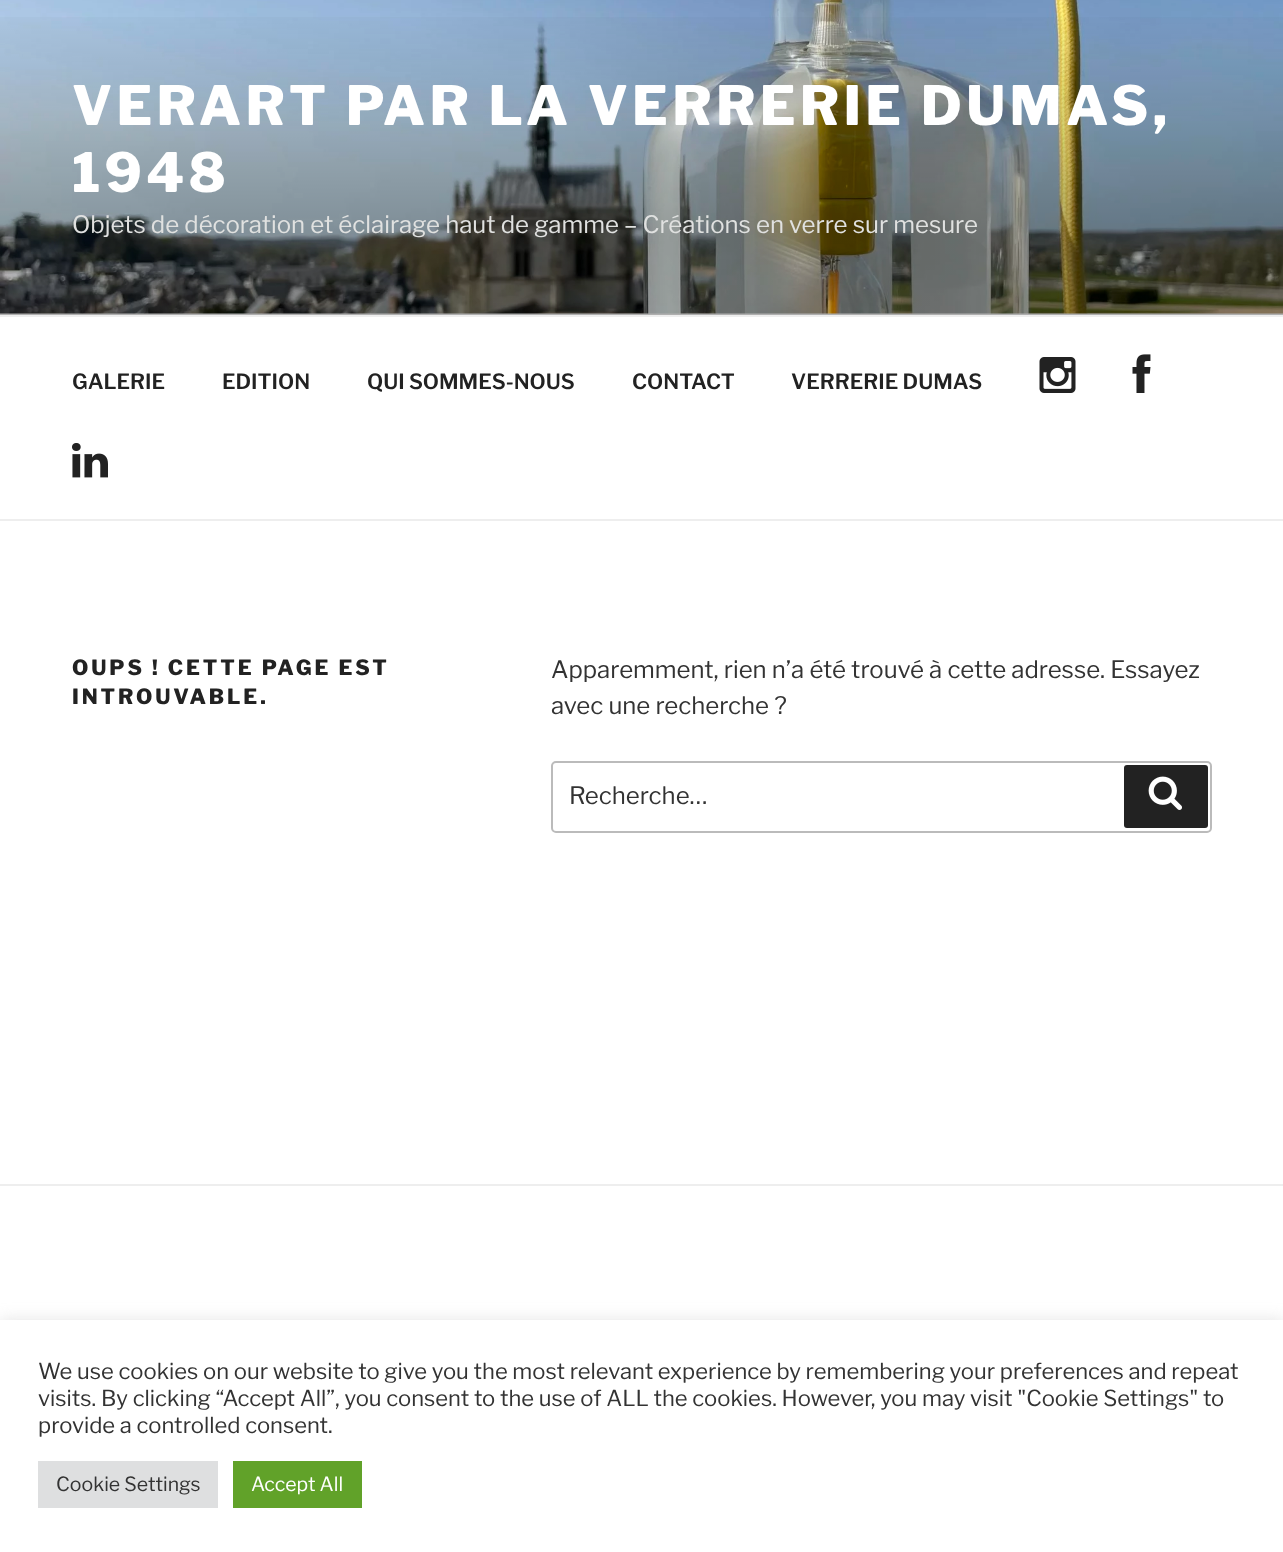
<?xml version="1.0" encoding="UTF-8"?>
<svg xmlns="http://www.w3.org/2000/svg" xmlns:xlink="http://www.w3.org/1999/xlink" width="1283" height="1552">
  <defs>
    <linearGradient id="g1" gradientUnits="userSpaceOnUse" x1="642" y1="0" x2="642" y2="315"><stop offset="0" stop-color="#000000" stop-opacity="0" /><stop offset="0.75" stop-color="#000000" stop-opacity="0.3" /><stop offset="1" stop-color="#000000" stop-opacity="0.3" /></linearGradient>
  </defs>
  <rect width="100%" height="100%" fill="#ffffff" />
  <rect y="313" width="1283" height="2" fill="#fafafa" />
  <image x="0" y="0" width="1283" height="314" xlink:href="image1.png" />
  <rect y="17" width="1283" height="298" fill="url(#g1)" />
  <rect y="315" width="1283" height="2" fill="#eeeeee" />
  <rect y="519" width="1283" height="2" fill="#eeeeee" />
  <image x="1039" y="357" width="37" height="36" xlink:href="image2.png" />
  <image x="1132" y="354" width="19" height="39" xlink:href="image3.png" />
  <image x="72" y="443" width="36" height="35" xlink:href="image4.png" />
  <rect x="552" y="762" width="659" height="70" rx="4" fill="none" stroke="#bbbbbb" stroke-width="2" />
  <rect x="1124" y="765" width="84" height="63" rx="3" fill="#222222" />
  <image x="1148" y="776" width="34" height="34" xlink:href="image5.png" />
  <rect y="1184" width="1283" height="2" fill="#eeeeee" />
  <rect y="1319" width="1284" height="232" fill="#acabab" fill-opacity="0.3" filter="blur(7.5px)" />
  <rect y="1320" width="1283" height="232" fill="#ffffff" />
  <rect x="38" y="1461" width="180" height="47" fill="#dedfe0" />
  <rect x="233" y="1461" width="129" height="47" fill="#61a229" />
  <text x="72" y="125" style="font-family: Libre Franklin; font-size: 54px; font-weight: 100; letter-spacing: 4.3px; fill: #ffffff">VERART PAR LA VERRERIE DUMAS,</text>
  <text x="72" y="192" style="font-family: Libre Franklin; font-size: 54px; font-weight: 100; letter-spacing: 4.3px; fill: #ffffff">1948</text>
  <text x="72" y="233" style="font-family: 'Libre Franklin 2'; font-size: 24px; font-weight: 100; fill: #e0e1e0">Objets de décoration et éclairage haut de gamme – Créations en verre sur mesure</text>
  <text x="72" y="389" style="font-family: 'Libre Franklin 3'; font-size: 21px; font-weight: 100; fill: #222222">GALERIE</text>
  <text x="222" y="389" style="font-family: 'Libre Franklin 3'; font-size: 21px; font-weight: 100; fill: #222222">EDITION</text>
  <text x="367" y="389" style="font-family: 'Libre Franklin 3'; font-size: 21px; font-weight: 100; fill: #222222">QUI SOMMES-NOUS</text>
  <text x="632" y="389" style="font-family: 'Libre Franklin 3'; font-size: 21px; font-weight: 100; fill: #222222">CONTACT</text>
  <text x="791" y="389" style="font-family: 'Libre Franklin 3'; font-size: 21px; font-weight: 100; fill: #222222">VERRERIE DUMAS</text>
  <text x="72" y="675" style="font-family: Libre Franklin; font-size: 21px; font-weight: 100; letter-spacing: 2.9px; fill: #222222">OUPS ! CETTE PAGE EST</text>
  <text x="72" y="704" style="font-family: Libre Franklin; font-size: 21px; font-weight: 100; letter-spacing: 2.9px; fill: #222222">INTROUVABLE.</text>
  <text x="551" y="678" style="font-family: 'Libre Franklin 2'; font-size: 24px; font-weight: 100; fill: #333333">Apparemment, rien n’a été trouvé à cette adresse. Essayez</text>
  <text x="551" y="714" style="font-family: 'Libre Franklin 2'; font-size: 24px; font-weight: 100; fill: #333333">avec une recherche ?</text>
  <text x="569" y="804" style="font-family: 'Libre Franklin 2'; font-size: 24px; font-weight: 100; fill: #333333">Recherche…</text>
  <text x="38" y="1379" style="font-family: 'Libre Franklin 2'; font-size: 22px; font-weight: 100; fill: #333333">We use cookies on our website to give you the most relevant experience by remembering your preferences and repeat</text>
  <text x="38" y="1406" style="font-family: 'Libre Franklin 2'; font-size: 22px; font-weight: 100; fill: #333333">visits. By clicking “Accept All”, you consent to the use of ALL the cookies. However, you may visit "Cookie Settings" to</text>
  <text x="38" y="1433" style="font-family: 'Libre Franklin 2'; font-size: 22px; font-weight: 100; fill: #333333">provide a controlled consent.</text>
  <text x="56" y="1491" style="font-family: 'Libre Franklin 2'; font-size: 19.5px; font-weight: 100; fill: #333333">Cookie Settings</text>
  <text x="251" y="1491" style="font-family: 'Libre Franklin 2'; font-size: 19.5px; font-weight: 100; fill: #ffffff">Accept All</text>
</svg>
